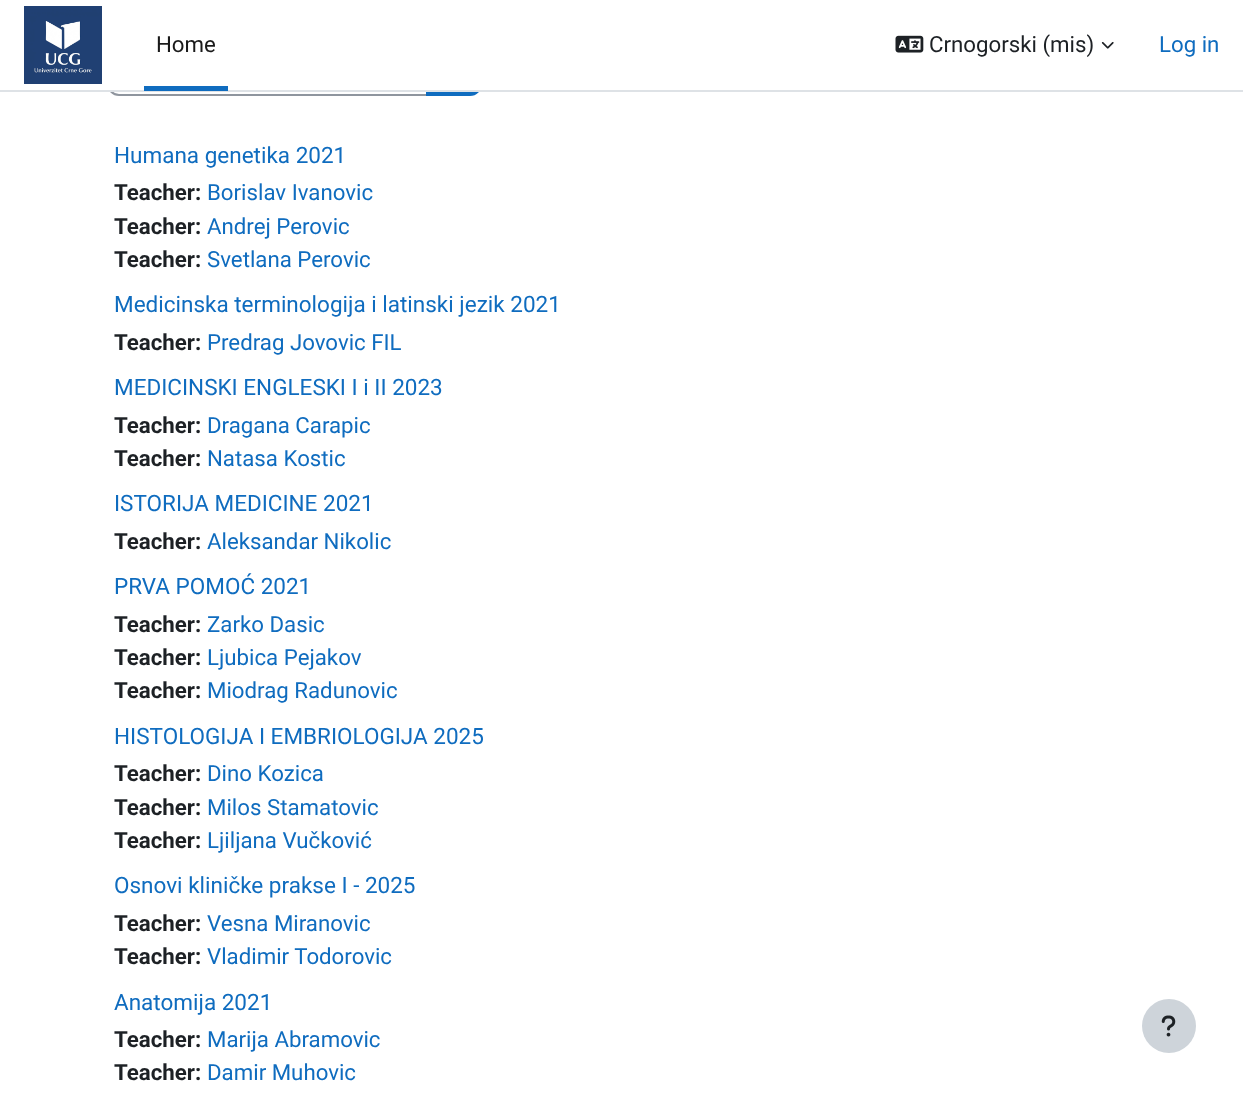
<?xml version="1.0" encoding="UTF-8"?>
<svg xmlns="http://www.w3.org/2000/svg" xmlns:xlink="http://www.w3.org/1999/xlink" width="1243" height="1100">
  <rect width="100%" height="100%" fill="#ffffff" />
  <path d="M 119 43 h 308 v 52 h -308 c -6 0 -11 -5 -11 -11 v -30 c 0 -6 5 -11 11 -11 z" fill="none" stroke="#8f959e" stroke-width="2" />
  <path d="M 427 43 h 43 c 6 0 11 5 11 11 v 30 c 0 6 -5 11 -11 11 h -43 z" fill="#0f6cbf" stroke="#0f6cbf" stroke-width="2" />
  <rect x="107" y="42" width="375" height="48" fill="#ffffff" />
  <rect y="90" width="1243" height="2" fill="#dee2e6" />
  <image x="24" y="6" width="78" height="78" xlink:href="image1.png" />
  <rect x="144" y="86" width="84" height="5" fill="#0f6cbf" />
  <image x="895" y="35" width="29" height="18" xlink:href="image2.png" />
  <image x="1101" y="42" width="13" height="7" xlink:href="image3.png" />
  <circle cx="1169" cy="1026" r="27" fill="#ced4da" />
  <image x="1161" y="1015" width="15" height="22" xlink:href="image4.png" />
  <text x="156" y="52" style="font-family: Roboto; font-size: 22.25px; fill: #1a1a1a">Home</text>
  <text x="929" y="52" style="font-family: Roboto; font-size: 22.25px; fill: #1d2125">Crnogorski (mis)</text>
  <text x="1159" y="52" style="font-family: Roboto; font-size: 22.25px; fill: #0f6cbf">Log in</text>
  <text x="114" y="163" style="font-family: Roboto; font-size: 22.5px; fill: #0f6cbf">Humana genetika 2021</text>
  <text x="114" y="200" style="font-family: Roboto; font-size: 22.25px; font-weight: bold; fill: #1d2125">Teacher:</text>
  <text x="207" y="200" style="font-family: Roboto; font-size: 22.25px; fill: #0f6cbf">Borislav Ivanovic</text>
  <text x="114" y="234" style="font-family: Roboto; font-size: 22.25px; font-weight: bold; fill: #1d2125">Teacher:</text>
  <text x="207" y="234" style="font-family: Roboto; font-size: 22.25px; fill: #0f6cbf">Andrej Perovic</text>
  <text x="114" y="267" style="font-family: Roboto; font-size: 22.25px; font-weight: bold; fill: #1d2125">Teacher:</text>
  <text x="207" y="267" style="font-family: Roboto; font-size: 22.25px; fill: #0f6cbf">Svetlana Perovic</text>
  <text x="114" y="312" style="font-family: Roboto; font-size: 22.5px; fill: #0f6cbf">Medicinska terminologija i latinski jezik 2021</text>
  <text x="114" y="350" style="font-family: Roboto; font-size: 22.25px; font-weight: bold; fill: #1d2125">Teacher:</text>
  <text x="207" y="350" style="font-family: Roboto; font-size: 22.25px; fill: #0f6cbf">Predrag Jovovic FIL</text>
  <text x="114" y="395" style="font-family: Roboto; font-size: 22.5px; fill: #0f6cbf">MEDICINSKI ENGLESKI I i II 2023</text>
  <text x="114" y="433" style="font-family: Roboto; font-size: 22.25px; font-weight: bold; fill: #1d2125">Teacher:</text>
  <text x="207" y="433" style="font-family: Roboto; font-size: 22.25px; fill: #0f6cbf">Dragana Carapic</text>
  <text x="114" y="466" style="font-family: Roboto; font-size: 22.25px; font-weight: bold; fill: #1d2125">Teacher:</text>
  <text x="207" y="466" style="font-family: Roboto; font-size: 22.25px; fill: #0f6cbf">Natasa Kostic</text>
  <text x="114" y="511" style="font-family: Roboto; font-size: 22.5px; fill: #0f6cbf">ISTORIJA MEDICINE 2021</text>
  <text x="114" y="549" style="font-family: Roboto; font-size: 22.25px; font-weight: bold; fill: #1d2125">Teacher:</text>
  <text x="207" y="549" style="font-family: Roboto; font-size: 22.25px; fill: #0f6cbf">Aleksandar Nikolic</text>
  <text x="114" y="594" style="font-family: Roboto; font-size: 22.5px; fill: #0f6cbf">PRVA POMOĆ 2021</text>
  <text x="114" y="632" style="font-family: Roboto; font-size: 22.25px; font-weight: bold; fill: #1d2125">Teacher:</text>
  <text x="207" y="632" style="font-family: Roboto; font-size: 22.25px; fill: #0f6cbf">Zarko Dasic</text>
  <text x="114" y="665" style="font-family: Roboto; font-size: 22.25px; font-weight: bold; fill: #1d2125">Teacher:</text>
  <text x="207" y="665" style="font-family: Roboto; font-size: 22.25px; fill: #0f6cbf">Ljubica Pejakov</text>
  <text x="114" y="698" style="font-family: Roboto; font-size: 22.25px; font-weight: bold; fill: #1d2125">Teacher:</text>
  <text x="207" y="698" style="font-family: Roboto; font-size: 22.25px; fill: #0f6cbf">Miodrag Radunovic</text>
  <text x="114" y="744" style="font-family: Roboto; font-size: 22.5px; fill: #0f6cbf">HISTOLOGIJA I EMBRIOLOGIJA 2025</text>
  <text x="114" y="781" style="font-family: Roboto; font-size: 22.25px; font-weight: bold; fill: #1d2125">Teacher:</text>
  <text x="207" y="781" style="font-family: Roboto; font-size: 22.25px; fill: #0f6cbf">Dino Kozica</text>
  <text x="114" y="815" style="font-family: Roboto; font-size: 22.25px; font-weight: bold; fill: #1d2125">Teacher:</text>
  <text x="207" y="815" style="font-family: Roboto; font-size: 22.25px; fill: #0f6cbf">Milos Stamatovic</text>
  <text x="114" y="848" style="font-family: Roboto; font-size: 22.25px; font-weight: bold; fill: #1d2125">Teacher:</text>
  <text x="207" y="848" style="font-family: Roboto; font-size: 22.25px; fill: #0f6cbf">Ljiljana Vučković</text>
  <text x="114" y="893" style="font-family: Roboto; font-size: 22.5px; fill: #0f6cbf">Osnovi kliničke prakse I - 2025</text>
  <text x="114" y="931" style="font-family: Roboto; font-size: 22.25px; font-weight: bold; fill: #1d2125">Teacher:</text>
  <text x="207" y="931" style="font-family: Roboto; font-size: 22.25px; fill: #0f6cbf">Vesna Miranovic</text>
  <text x="114" y="964" style="font-family: Roboto; font-size: 22.25px; font-weight: bold; fill: #1d2125">Teacher:</text>
  <text x="207" y="964" style="font-family: Roboto; font-size: 22.25px; fill: #0f6cbf">Vladimir Todorovic</text>
  <text x="114" y="1010" style="font-family: Roboto; font-size: 22.5px; fill: #0f6cbf">Anatomija 2021</text>
  <text x="114" y="1047" style="font-family: Roboto; font-size: 22.25px; font-weight: bold; fill: #1d2125">Teacher:</text>
  <text x="207" y="1047" style="font-family: Roboto; font-size: 22.25px; fill: #0f6cbf">Marija Abramovic</text>
  <text x="114" y="1080" style="font-family: Roboto; font-size: 22.25px; font-weight: bold; fill: #1d2125">Teacher:</text>
  <text x="207" y="1080" style="font-family: Roboto; font-size: 22.25px; fill: #0f6cbf">Damir Muhovic</text>
</svg>
